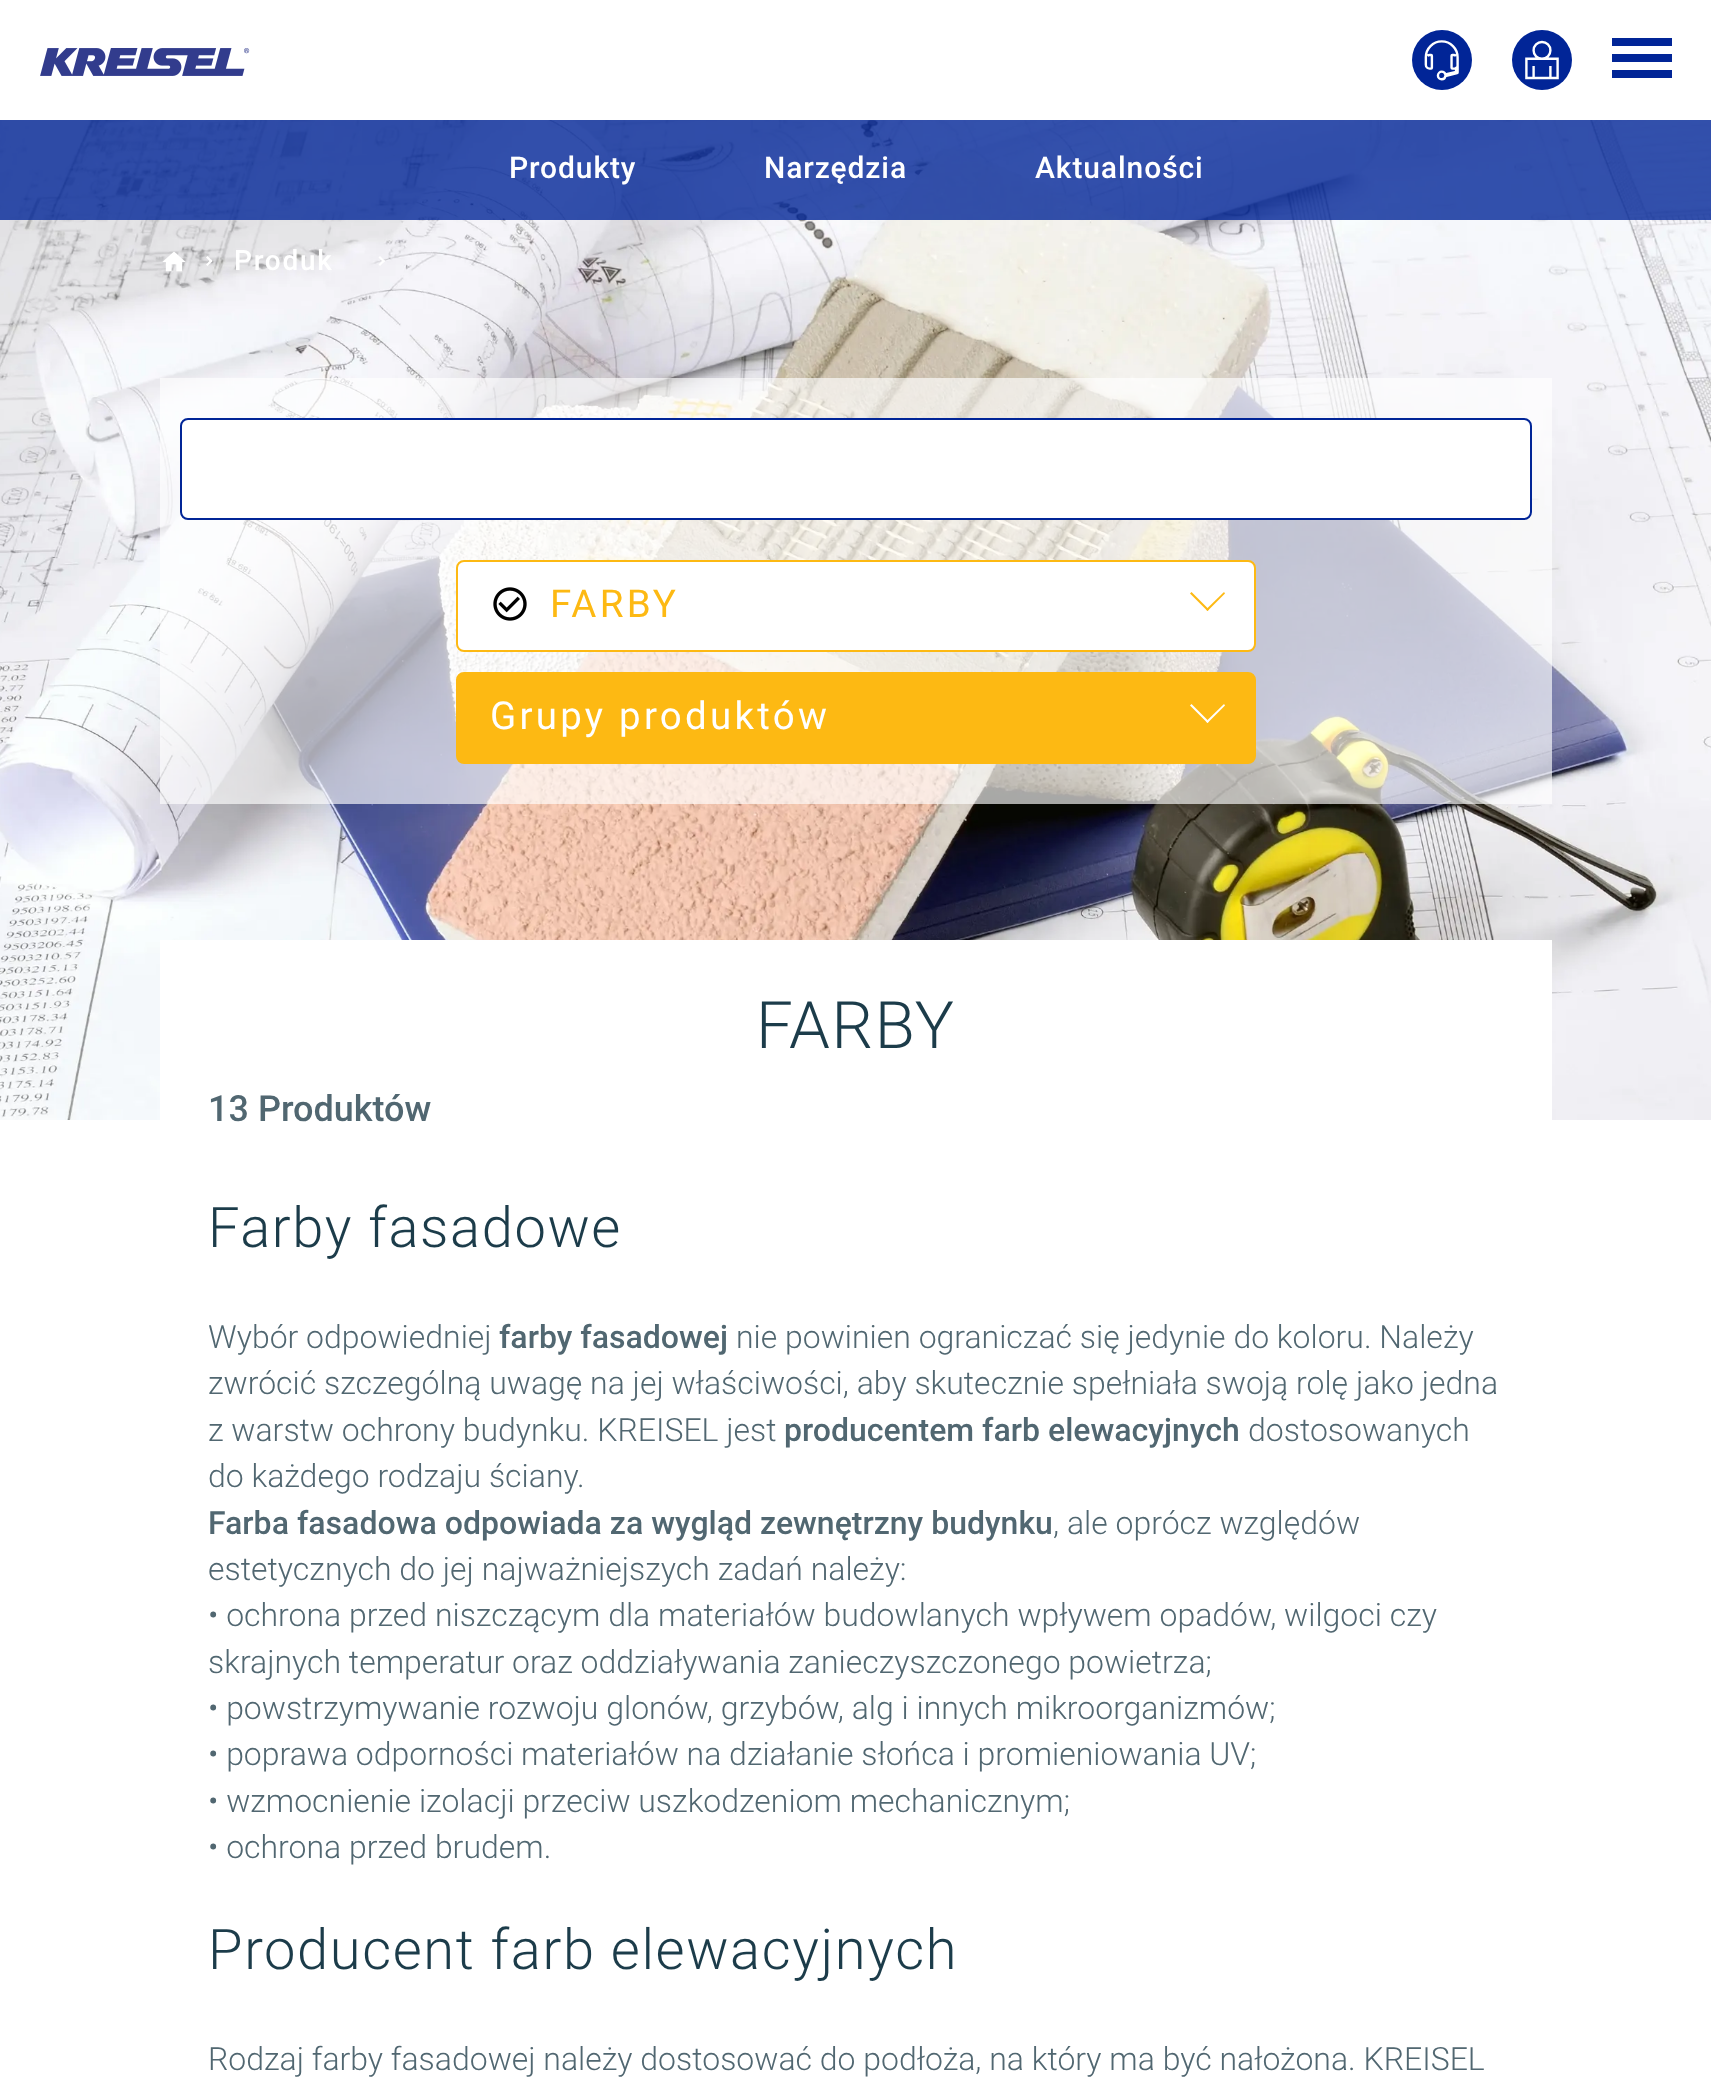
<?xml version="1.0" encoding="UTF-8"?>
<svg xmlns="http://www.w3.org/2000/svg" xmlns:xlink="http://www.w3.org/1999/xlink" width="1711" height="2098">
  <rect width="100%" height="100%" fill="#ffffff" />
  <image x="40" y="48" width="210" height="28" xlink:href="image1.png" />
  <circle cx="1442" cy="60" r="30" fill="#012597" />
  <image x="1424" y="40" width="35" height="41" xlink:href="image2.png" />
  <circle cx="1542" cy="60" r="30" fill="#012597" />
  <image x="1525" y="40" width="34" height="40" xlink:href="image3.png" />
  <rect x="1612" y="38" width="60" height="8" fill="#012597" />
  <rect x="1612" y="54" width="60" height="8" fill="#012597" />
  <rect x="1612" y="70" width="60" height="8" fill="#012597" />
  <image x="0" y="120" width="1711" height="1000" xlink:href="image5.png" />
  <rect y="120" width="1711" height="100" fill="#012597" fill-opacity="0.8" />
  <image x="162" y="251" width="24" height="21" xlink:href="image4.png" />
  <path d="M 207.5 256 l 5 5 l -1.5 1.5 l -5 -5 z" fill="#ffffff" />
  <path d="M 211 259.5 l 1.5 1.5 l -5 5 l -1.5 -1.5 z" fill="#ffffff" />
  <path d="M 380 256 l 5 5 l -1.5 1.5 l -5 -5 z" fill="#ffffff" />
  <path d="M 383.5 259.5 l 1.5 1.5 l -5 5 l -1.5 -1.5 z" fill="#ffffff" />
  <rect x="160" y="378" width="1392" height="426" fill="#ffffff" fill-opacity="0.65" />
  <rect x="181" y="419" width="1350" height="100" rx="7" fill="#ffffff" stroke="#012597" stroke-width="2" />
  <rect x="457" y="561" width="798" height="90" rx="7" fill="#ffffff" stroke="#fdb913" stroke-width="2" />
  <image x="493" y="587" width="34" height="34" xlink:href="image6.png" />
  <path d="M 1225 593.5 l -17.5 17.5 l -1.5 -1.5 l 18 -17.5 z" fill="#fdb913" />
  <path d="M 1209 609.5 l -1.5 1.5 l -17.5 -17.5 l 1.5 -1.5 z" fill="#fdb913" />
  <rect x="457" y="673" width="798" height="90" rx="7" fill="#fdb913" stroke="#fdb913" stroke-width="2" />
  <path d="M 1225 705.5 l -17.5 17.5 l -1.5 -1.5 l 18 -17.5 z" fill="#ffffff" />
  <path d="M 1209 721.5 l -1.5 1.5 l -17.5 -17.5 l 1.5 -1.5 z" fill="#ffffff" />
  <rect x="160" y="940" width="1392" height="180" fill="#ffffff" />
  <text x="509" y="178" style="font-family: Roboto; font-size: 30px; font-weight: 500; letter-spacing: 0.9px; fill: #ffffff">Produkty</text>
  <text x="764" y="178" style="font-family: Roboto; font-size: 30px; font-weight: 500; letter-spacing: 0.9px; fill: #ffffff">Narzędzia</text>
  <text x="1035" y="178" style="font-family: Roboto; font-size: 30px; font-weight: 500; letter-spacing: 0.9px; fill: #ffffff">Aktualności</text>
  <text x="234" y="270" style="font-family: Roboto; font-size: 28px; font-weight: 500; letter-spacing: 1.75px; fill: #ffffff">Produk</text>
  <text x="550" y="617" style="font-family: Roboto; font-size: 38.5px; letter-spacing: 3.25px; fill: #fdb913">FARBY</text>
  <text x="490" y="729" style="font-family: Roboto; font-size: 38.5px; letter-spacing: 3.25px; fill: #ffffff">Grupy produktów</text>
  <text x="756" y="1048" style="font-family: Roboto; font-size: 65.5px; font-weight: 300; letter-spacing: 1.6px; fill: #1c3c4a">FARBY</text>
  <text x="208" y="1121" style="font-family: Roboto; font-size: 36px; font-weight: 500; fill: #516771">13 Produktów</text>
  <text x="208" y="1247" style="font-family: Roboto; font-size: 56.1px; font-weight: 300; letter-spacing: 1.6px; fill: #1c3c4a">Farby fasadowe</text>
  <text x="208" y="1348" style="font-family: Roboto; font-size: 32px; font-weight: 300; fill: #516771">Wybór odpowiedniej</text>
  <text x="499" y="1348" style="font-family: Roboto; font-size: 32px; font-weight: 500; fill: #516771">farby fasadowej</text>
  <text x="736" y="1348" style="font-family: Roboto; font-size: 32px; font-weight: 300; fill: #516771">nie powinien ograniczać się jedynie do koloru. Należy</text>
  <text x="208" y="1394" style="font-family: Roboto; font-size: 32px; font-weight: 300; fill: #516771">zwrócić szczególną uwagę na jej właściwości, aby skutecznie spełniała swoją rolę jako jedna</text>
  <text x="208" y="1441" style="font-family: Roboto; font-size: 32px; font-weight: 300; fill: #516771">z warstw ochrony budynku. KREISEL jest</text>
  <text x="784" y="1441" style="font-family: Roboto; font-size: 32px; font-weight: 500; fill: #516771">producentem farb elewacyjnych</text>
  <text x="1248" y="1441" style="font-family: Roboto; font-size: 32px; font-weight: 300; fill: #516771">dostosowanych</text>
  <text x="208" y="1487" style="font-family: Roboto; font-size: 32px; font-weight: 300; fill: #516771">do każdego rodzaju ściany.</text>
  <text x="208" y="1534" style="font-family: Roboto; font-size: 32px; font-weight: 500; fill: #516771">Farba fasadowa odpowiada za wygląd zewnętrzny budynku</text>
  <text x="1053" y="1534" style="font-family: Roboto; font-size: 32px; font-weight: 300; fill: #516771">, ale oprócz względów</text>
  <text x="208" y="1580" style="font-family: Roboto; font-size: 32px; font-weight: 300; fill: #516771">estetycznych do jej najważniejszych zadań należy:</text>
  <text x="208" y="1626" style="font-family: Roboto; font-size: 32px; font-weight: 300; fill: #516771">• ochrona przed niszczącym dla materiałów budowlanych wpływem opadów, wilgoci czy</text>
  <text x="208" y="1673" style="font-family: Roboto; font-size: 32px; font-weight: 300; fill: #516771">skrajnych temperatur oraz oddziaływania zanieczyszczonego powietrza;</text>
  <text x="208" y="1719" style="font-family: Roboto; font-size: 32px; font-weight: 300; fill: #516771">• powstrzymywanie rozwoju glonów, grzybów, alg i innych mikroorganizmów;</text>
  <text x="208" y="1765" style="font-family: Roboto; font-size: 32px; font-weight: 300; fill: #516771">• poprawa odporności materiałów na działanie słońca i promieniowania UV;</text>
  <text x="208" y="1812" style="font-family: Roboto; font-size: 32px; font-weight: 300; fill: #516771">• wzmocnienie izolacji przeciw uszkodzeniom mechanicznym;</text>
  <text x="208" y="1858" style="font-family: Roboto; font-size: 32px; font-weight: 300; fill: #516771">• ochrona przed brudem.</text>
  <text x="208" y="1969" style="font-family: Roboto; font-size: 56.1px; font-weight: 300; letter-spacing: 1.6px; fill: #1c3c4a">Producent farb elewacyjnych</text>
  <text x="208" y="2070" style="font-family: Roboto; font-size: 32px; font-weight: 300; fill: #516771">Rodzaj farby fasadowej należy dostosować do podłoża, na który ma być nałożona. KREISEL</text>
</svg>
